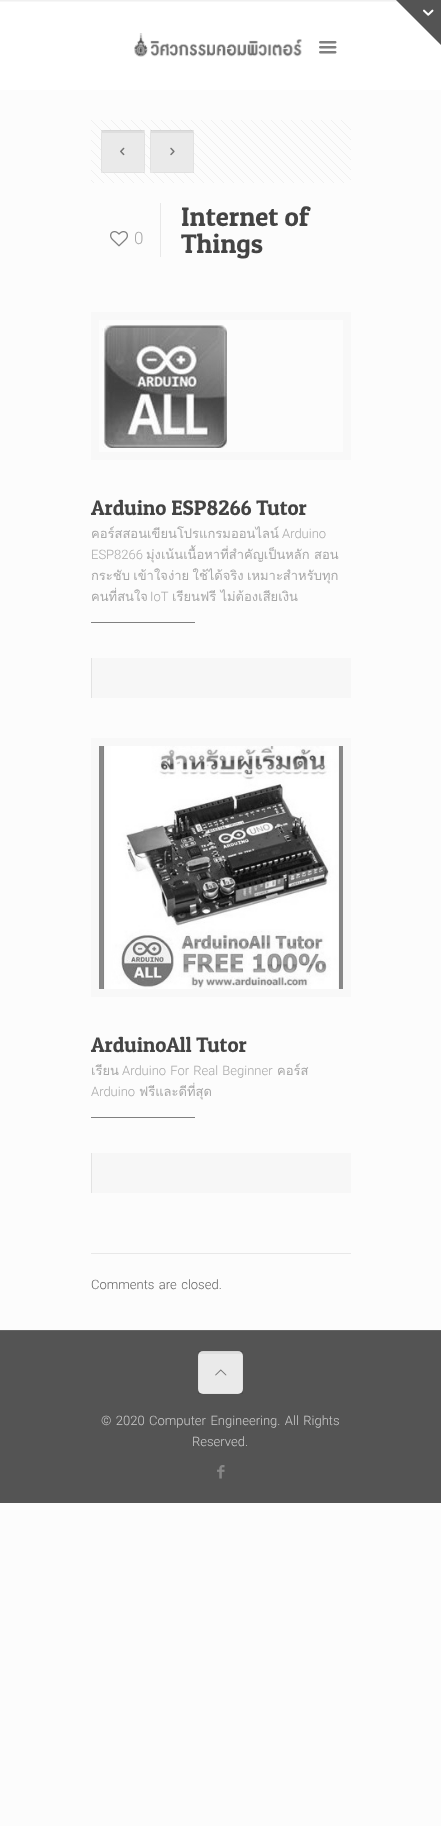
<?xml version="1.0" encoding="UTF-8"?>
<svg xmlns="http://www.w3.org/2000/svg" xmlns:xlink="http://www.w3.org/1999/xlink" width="441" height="1826">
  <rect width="100%" height="100%" fill="#fcfcfc" />
  <rect width="441" height="90" fill="#ffffff" />
  <image x="0" y="0" width="398" height="2" xlink:href="image1.png" />
  <path d="M 441 0 v 45 l -45 -45 z" fill="#545454" />
  <image x="423" y="9" width="11" height="7" xlink:href="image2.png" />
  <image x="134" y="33" width="168" height="24" xlink:href="image3.png" />
  <image x="319" y="41" width="18" height="13" xlink:href="image4.png" />
  <image x="91" y="120" width="260" height="63" xlink:href="image5.png" />
  <rect x="101" y="130" width="44" height="43" rx="5" fill="#f7f7f7" />
  <rect x="102" y="130" width="42" height="3" fill="#000000" fill-opacity="0.05" />
  <rect x="101.5" y="130.5" width="43" height="42" fill="none" stroke="#000000" stroke-opacity="0.03" />
  <rect x="101" y="130" width="44" height="43" fill="#000000" fill-opacity="0.05" />
  <image x="120" y="147" width="5" height="9" xlink:href="image6.png" />
  <rect x="150" y="130" width="44" height="43" rx="5" fill="#f7f7f7" />
  <rect x="151" y="130" width="42" height="3" fill="#000000" fill-opacity="0.05" />
  <rect x="150.5" y="130.5" width="43" height="42" fill="none" stroke="#000000" stroke-opacity="0.03" />
  <rect x="150" y="130" width="44" height="43" fill="#000000" fill-opacity="0.05" />
  <image x="170" y="147" width="5" height="9" xlink:href="image7.png" />
  <image x="110" y="231" width="18" height="16" xlink:href="image8.png" />
  <rect x="160" y="203" width="1" height="54" fill="#e8e8e8" />
  <rect x="95" y="316" width="252" height="140" fill="none" stroke="#f8f8f8" stroke-width="8" />
  <image x="102" y="325" width="125" height="123" xlink:href="image9.png" />
  <rect x="91" y="622" width="104" height="1" fill="#808080" />
  <rect x="92" y="658" width="259" height="40" fill="#f7f7f7" />
  <rect x="91" y="658" width="1" height="40" fill="#e3e3e3" />
  <rect x="95" y="742" width="252" height="251" fill="none" stroke="#f8f8f8" stroke-width="8" />
  <image x="99" y="746" width="244" height="243" xlink:href="image10.png" />
  <rect x="91" y="1117" width="104" height="1" fill="#808080" />
  <rect x="92" y="1153" width="259" height="40" fill="#f7f7f7" />
  <rect x="91" y="1153" width="1" height="40" fill="#e3e3e3" />
  <rect x="91" y="1253" width="260" height="1" fill="#e8e8e8" />
  <rect y="1331" width="441" height="172" fill="#545454" />
  <rect y="1330" width="441" height="1" fill="#656565" />
  <rect x="198" y="1351" width="45" height="43" rx="5" fill="#f7f7f7" />
  <rect x="199" y="1351" width="43" height="3" fill="#000000" fill-opacity="0.05" />
  <rect x="198.5" y="1351.5" width="44" height="42" fill="none" stroke="#000000" stroke-opacity="0.03" />
  <rect x="198" y="1351" width="45" height="43" fill="#000000" fill-opacity="0.05" />
  <image x="215" y="1369" width="12" height="7" xlink:href="image11.png" />
  <image x="217" y="1465" width="8" height="14" xlink:href="image12.png" />
  <text x="134" y="244" style="font-family: Roboto; font-size: 17px; font-weight: 300; fill: #a8a8a8">0</text>
  <text x="181" y="226" style="font-family: Patua One; font-size: 27px; fill: #444444">Internet of</text>
  <text x="181" y="253" style="font-family: Patua One; font-size: 27px; fill: #444444">Things</text>
  <text x="91" y="515" style="font-family: Patua One; font-size: 21px; fill: #444444">Arduino ESP8266 Tutor</text>
  <text x="91" y="538" style="font-family: Loma; font-size: 13px; fill: #a8a8a8">คอร์สสอนเขียนโปรแกรมออนไลน์</text>
  <text x="282" y="538" style="font-family: Roboto; font-size: 13px; font-weight: 300; fill: #a8a8a8">Arduino</text>
  <text x="91" y="559" style="font-family: Roboto; font-size: 13px; font-weight: 300; fill: #a8a8a8">ESP8266</text>
  <text x="146" y="559" style="font-family: Loma; font-size: 13px; fill: #a8a8a8">มุ่งเน้นเนื้อหาที่สำคัญเป็นหลัก สอน</text>
  <text x="91" y="580" word-spacing="-1" style="font-family: Loma; font-size: 13px; fill: #a8a8a8">กระชับ เข้าใจง่าย ใช้ได้จริง เหมาะสำหรับทุก</text>
  <text x="91" y="601" style="font-family: Loma; font-size: 13px; fill: #a8a8a8">คนที่สนใจ</text>
  <text x="150" y="601" style="font-family: Roboto; font-size: 13px; font-weight: 300; fill: #a8a8a8">IoT</text>
  <text x="172" y="601" style="font-family: Loma; font-size: 13px; fill: #a8a8a8">เรียนฟรี ไม่ต้องเสียเงิน</text>
  <text x="91" y="1052" style="font-family: Patua One; font-size: 21px; fill: #444444">ArduinoAll Tutor</text>
  <text x="91" y="1075" style="font-family: Loma; font-size: 13px; fill: #a8a8a8">เรียน</text>
  <text x="122" y="1075" word-spacing="1" style="font-family: Roboto; font-size: 13px; font-weight: 300; fill: #a8a8a8">Arduino For Real Beginner</text>
  <text x="277" y="1075" style="font-family: Loma; font-size: 13px; fill: #a8a8a8">คอร์ส</text>
  <text x="91" y="1096" style="font-family: Roboto; font-size: 13px; font-weight: 300; fill: #a8a8a8">Arduino</text>
  <text x="139" y="1096" style="font-family: Loma; font-size: 13px; fill: #a8a8a8">ฟรีและดีที่สุด</text>
  <text x="91" y="1289" word-spacing="1.25" style="font-family: Roboto; font-size: 13px; font-weight: 300; fill: #626262">Comments are closed.</text>
  <text x="101" y="1425" word-spacing="1.25" style="font-family: Roboto; font-size: 13px; font-weight: 300; fill: #cccccc">© 2020 Computer Engineering. All Rights</text>
  <text x="192" y="1446" style="font-family: Roboto; font-size: 13px; font-weight: 300; fill: #cccccc">Reserved.</text>
</svg>
